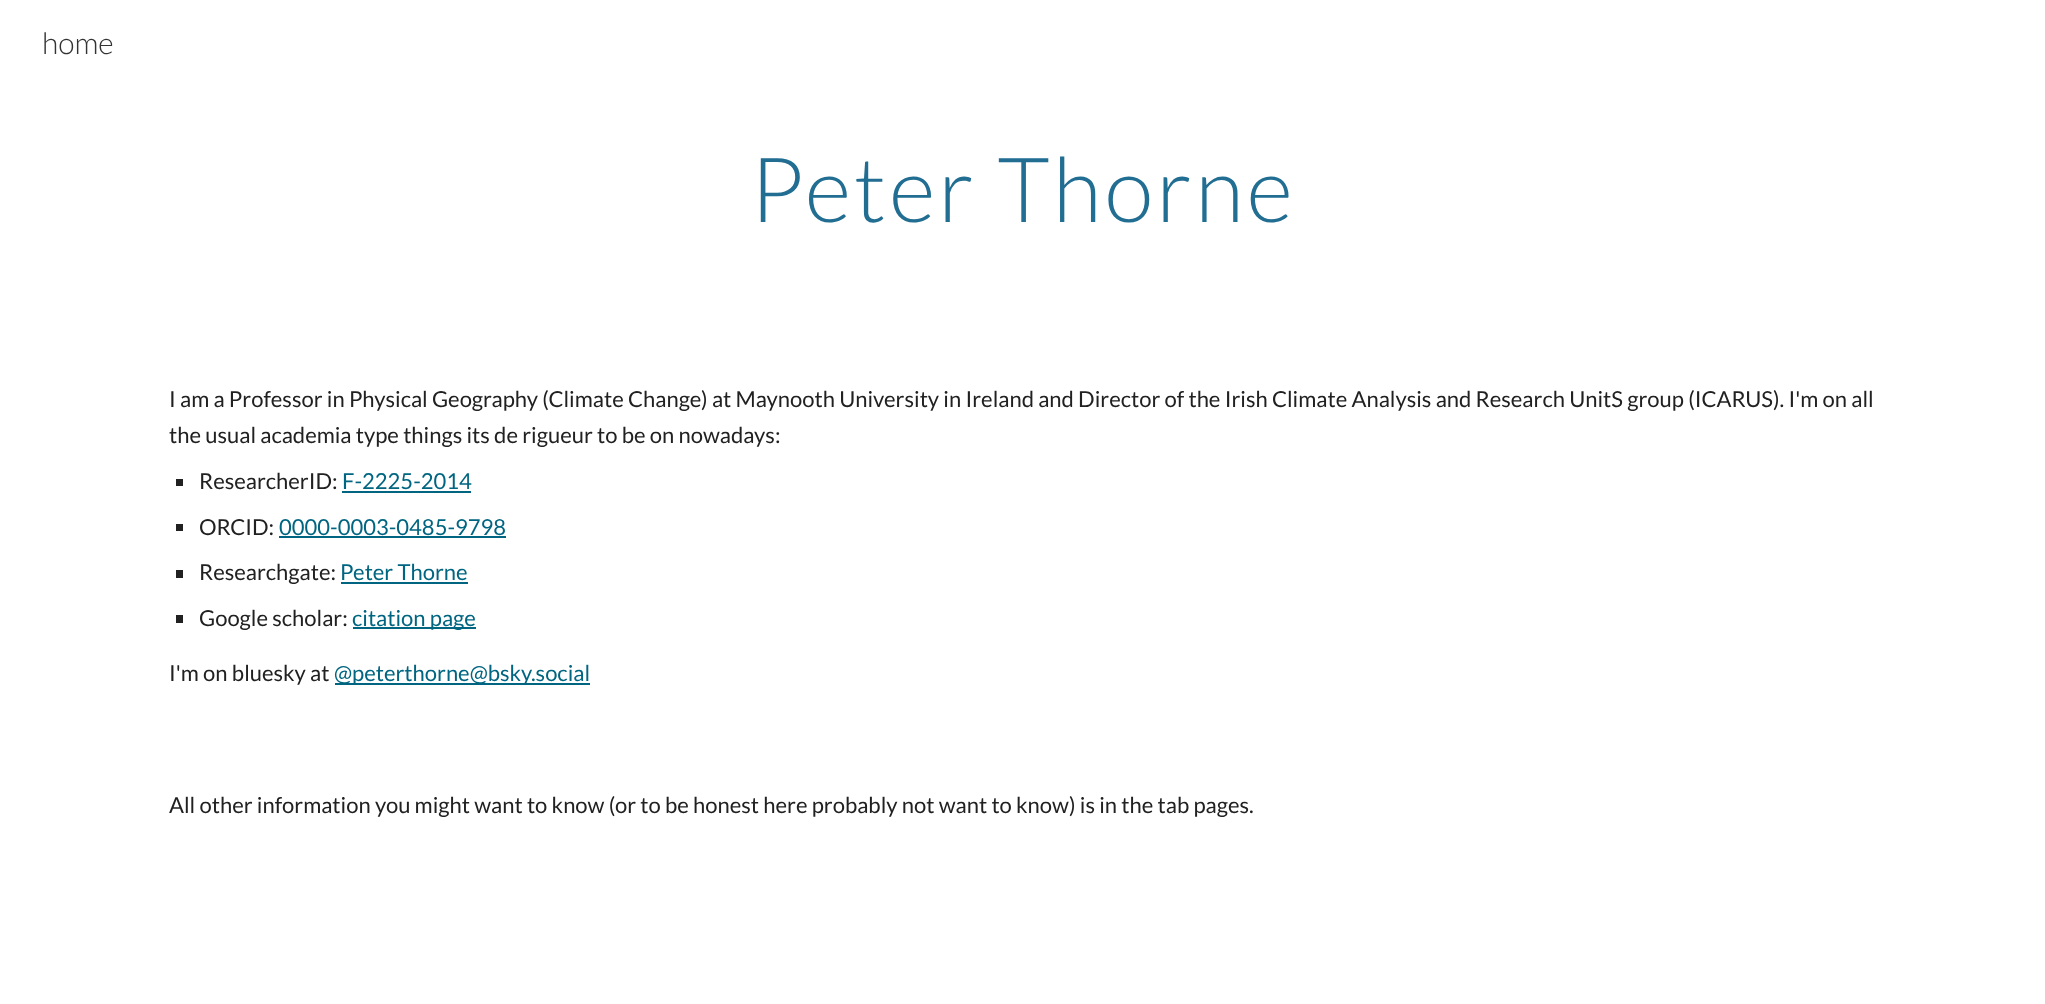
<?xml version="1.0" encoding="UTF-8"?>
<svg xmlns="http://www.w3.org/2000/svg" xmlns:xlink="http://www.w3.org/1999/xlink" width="2045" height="1004">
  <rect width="100%" height="100%" fill="#ffffff" />
  <rect x="176" y="479" width="7" height="7" fill="#212121" />
  <rect x="342" y="491" width="129" height="2" fill="#006580" />
  <rect x="176" y="524" width="7" height="7" fill="#212121" />
  <rect x="279" y="536" width="227" height="2" fill="#006580" />
  <rect x="176" y="570" width="7" height="8" fill="#212121" />
  <rect x="341" y="582" width="127" height="2" fill="#006580" />
  <rect x="176" y="615" width="7" height="8" fill="#212121" />
  <rect x="353" y="627" width="123" height="2" fill="#006580" />
  <rect x="335" y="683" width="255" height="2" fill="#006580" />
  <text x="42" y="54" style="font-family: Lato; font-size: 30px; font-weight: 300; fill: #333333">home</text>
  <text x="750" y="222" style="font-family: Lato; font-size: 90px; font-weight: 300; letter-spacing: 3px; fill: #226e93">Peter Thorne</text>
  <text x="169" y="407" style="font-family: Lato; font-size: 22px; fill: #212121">I am a Professor in Physical Geography (Climate Change) at Maynooth University in Ireland and Director of the Irish Climate Analysis and Research UnitS group (ICARUS). I'm on all</text>
  <text x="169" y="443" style="font-family: Lato; font-size: 22px; fill: #212121">the usual academia type things its de rigueur to be on nowadays:</text>
  <text x="199" y="489" style="font-family: Lato; font-size: 22px; fill: #212121">ResearcherID:</text>
  <text x="342" y="489" style="font-family: Lato; font-size: 22px; fill: #006580">F-2225-2014</text>
  <text x="199" y="535" style="font-family: Lato; font-size: 22px; fill: #212121">ORCID:</text>
  <text x="279" y="535" style="font-family: Lato; font-size: 22px; fill: #006580">0000-0003-0485-9798</text>
  <text x="199" y="580" style="font-family: Lato; font-size: 22px; fill: #212121">Researchgate:</text>
  <text x="340" y="580" style="font-family: Lato; font-size: 22px; fill: #006580">Peter Thorne</text>
  <text x="199" y="626" style="font-family: Lato; font-size: 22px; fill: #212121">Google scholar:</text>
  <text x="352" y="626" style="font-family: Lato; font-size: 22px; fill: #006580">citation page</text>
  <text x="169" y="681" style="font-family: Lato; font-size: 22px; fill: #212121">I'm on bluesky at</text>
  <text x="334" y="681" style="font-family: Lato; font-size: 22px; fill: #006580">@peterthorne@bsky.social</text>
  <text x="169" y="813" style="font-family: Lato; font-size: 22px; fill: #212121">All other information you might want to know (or to be honest here probably not want to know) is in the tab pages.</text>
</svg>
